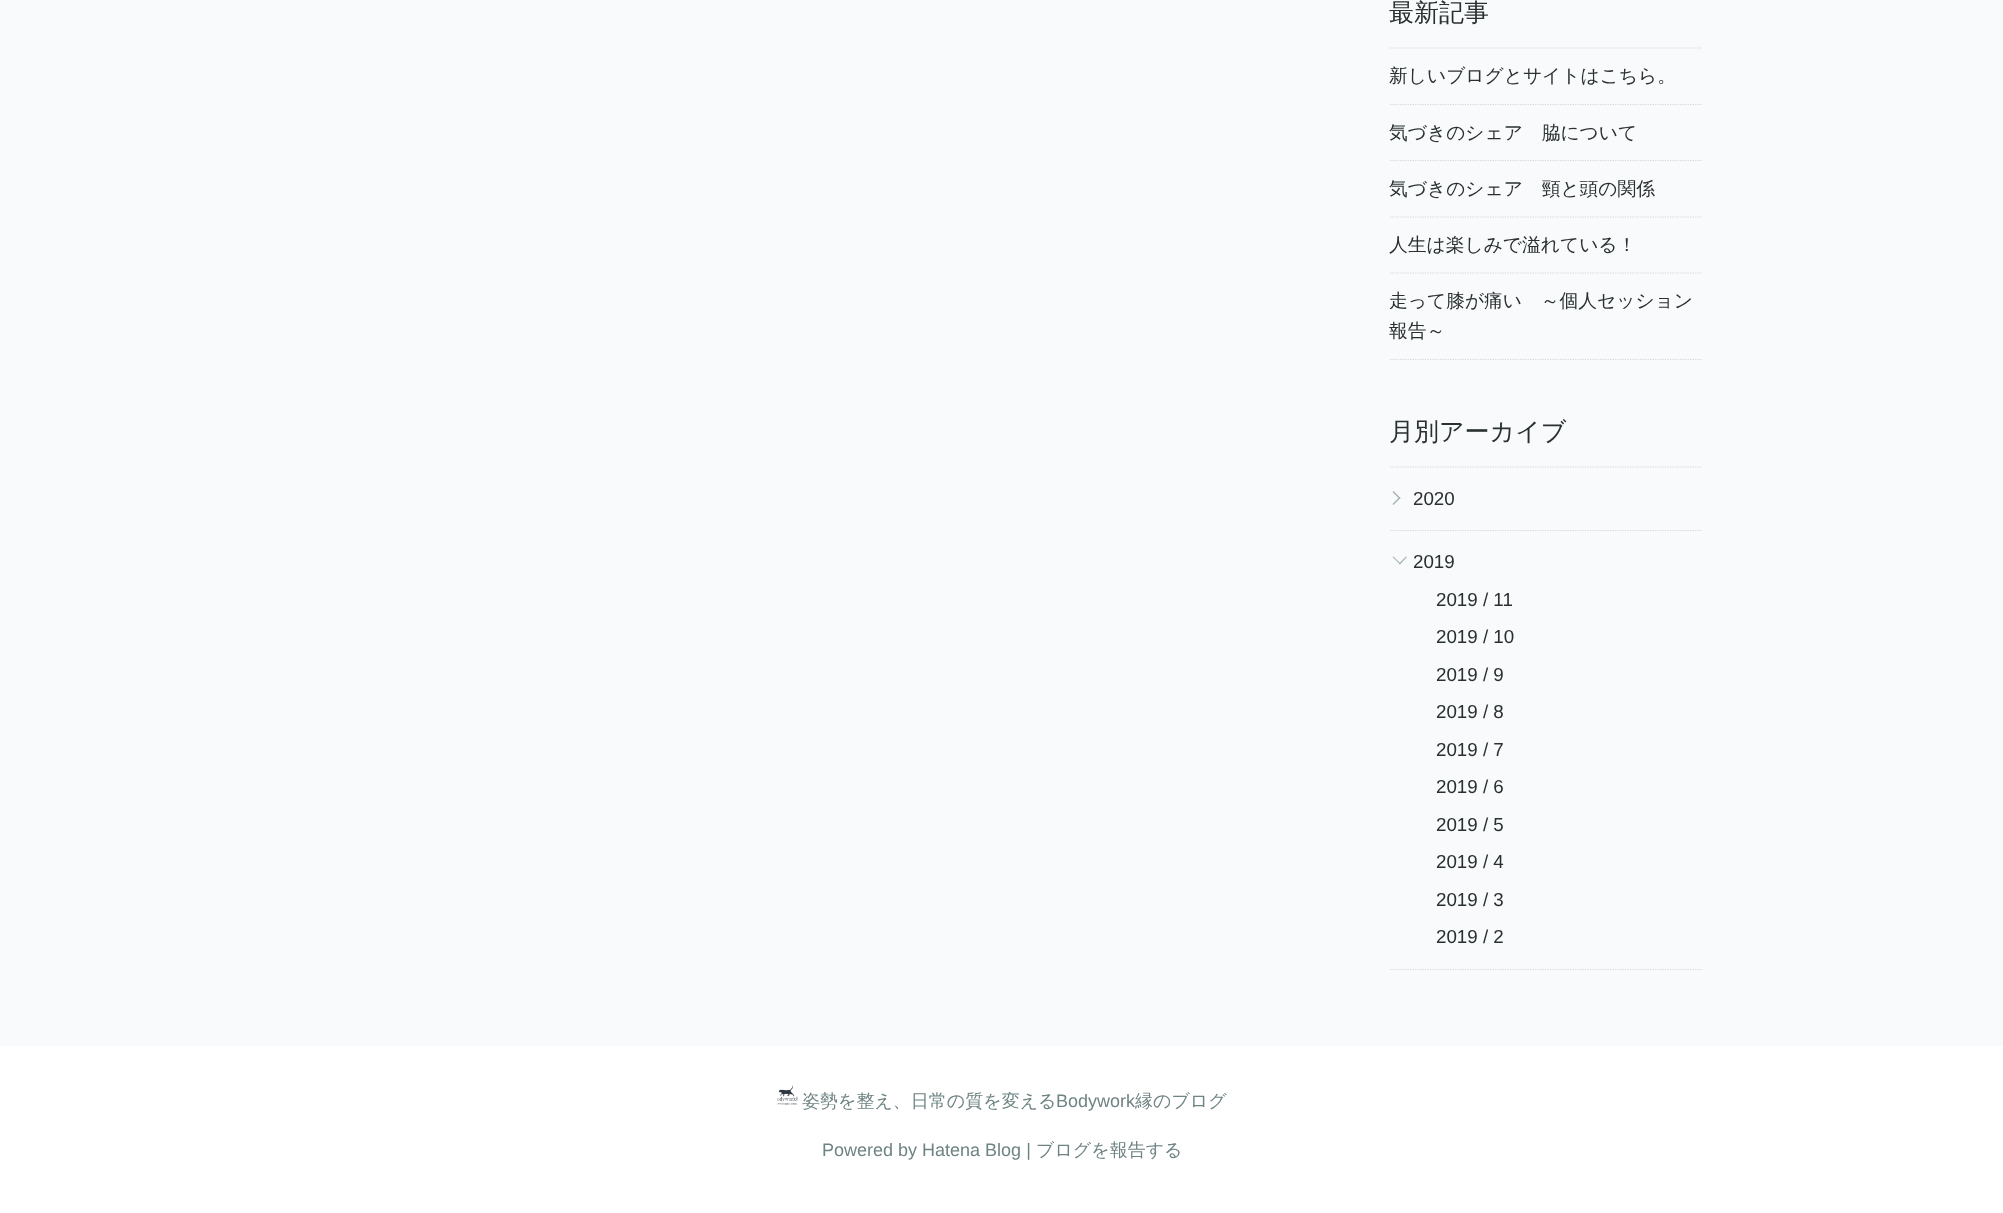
<?xml version="1.0" encoding="UTF-8"?>
<svg xmlns="http://www.w3.org/2000/svg" xmlns:xlink="http://www.w3.org/1999/xlink" width="2003" height="1213">
  <rect width="100%" height="100%" fill="#f9fafb" />
  <path d="M 1390 48 h 312.5" fill="none" stroke="#cfd8d8" stroke-width="1.2" stroke-dasharray="1.25 1.25" />
  <path d="M 1390 104.5 h 312.5" fill="none" stroke="#cfd8d8" stroke-width="1.2" stroke-dasharray="1.25 1.25" />
  <path d="M 1390 160.5 h 312.5" fill="none" stroke="#cfd8d8" stroke-width="1.2" stroke-dasharray="1.25 1.25" />
  <path d="M 1390 217 h 312.5" fill="none" stroke="#cfd8d8" stroke-width="1.2" stroke-dasharray="1.25 1.25" />
  <path d="M 1390 273 h 312.5" fill="none" stroke="#cfd8d8" stroke-width="1.2" stroke-dasharray="1.25 1.25" />
  <path d="M 1390 359.5 h 312.5" fill="none" stroke="#cfd8d8" stroke-width="1.2" stroke-dasharray="1.25 1.25" />
  <path d="M 1390 467 h 312.5" fill="none" stroke="#cfd8d8" stroke-width="1.2" stroke-dasharray="1.25 1.25" />
  <path d="M 1393.5 491 l 7 7 l -1 1 l -7 -7 z" fill="#a6b3b3" />
  <path d="M 1399.5 497 l 1 1 l -7 7 l -1 -1 z" fill="#a6b3b3" />
  <path d="M 1390 530.5 h 312.5" fill="none" stroke="#cfd8d8" stroke-width="1.2" stroke-dasharray="1.25 1.25" />
  <path d="M 1390 969.5 h 312.5" fill="none" stroke="#cfd8d8" stroke-width="1.2" stroke-dasharray="1.25 1.25" />
  <path d="M 1407 557 l -7 7.5 l -1 -1 l 7 -7 z" fill="#a6b3b3" />
  <path d="M 1400.5 563.5 l -0.5 1 l -7.5 -7.5 l 1 -0.5 z" fill="#a6b3b3" />
  <rect y="1046" width="2003" height="167" fill="#ffffff" />
  <image x="777" y="1085" width="21" height="20" xlink:href="image1.png" />
  <text x="1389" y="21" style="font-family: WenQuanYi Zen Hei; font-size: 25px; font-weight: 500; fill: #293030">最新記事</text>
  <text x="1389" y="82" style="font-family: WenQuanYi Zen Hei; font-size: 18.75px; font-weight: 500; fill: #293030">新しいブログとサイトはこちら。</text>
  <text x="1389" y="139" style="font-family: WenQuanYi Zen Hei; font-size: 18.75px; font-weight: 500; fill: #293030">気づきのシェア　脇について</text>
  <text x="1389" y="195" style="font-family: WenQuanYi Zen Hei; font-size: 18.75px; font-weight: 500; fill: #293030">気づきのシェア　頸と頭の関係</text>
  <text x="1389" y="251" style="font-family: WenQuanYi Zen Hei; font-size: 18.75px; font-weight: 500; fill: #293030">人生は楽しみで溢れている！</text>
  <text x="1389" y="307" style="font-family: WenQuanYi Zen Hei; font-size: 18.75px; font-weight: 500; fill: #293030">走って膝が痛い　～個人セッション</text>
  <text x="1389" y="337" style="font-family: WenQuanYi Zen Hei; font-size: 18.75px; font-weight: 500; fill: #293030">報告～</text>
  <text x="1389" y="440" style="font-family: WenQuanYi Zen Hei; font-size: 25px; font-weight: 500; fill: #293030">月別アーカイブ</text>
  <text x="1413" y="505" style="font-family: Liberation Sans; font-size: 18.75px; fill: #293030">2020</text>
  <text x="1413" y="568" style="font-family: Liberation Sans; font-size: 18.75px; fill: #293030">2019</text>
  <text x="1436" y="606" style="font-family: Liberation Sans; font-size: 18.75px; fill: #293030">2019 / 11</text>
  <text x="1436" y="643" style="font-family: Liberation Sans; font-size: 18.75px; fill: #293030">2019 / 10</text>
  <text x="1436" y="681" style="font-family: Liberation Sans; font-size: 18.75px; fill: #293030">2019 / 9</text>
  <text x="1436" y="718" style="font-family: Liberation Sans; font-size: 18.75px; fill: #293030">2019 / 8</text>
  <text x="1436" y="756" style="font-family: Liberation Sans; font-size: 18.75px; fill: #293030">2019 / 7</text>
  <text x="1436" y="793" style="font-family: Liberation Sans; font-size: 18.75px; fill: #293030">2019 / 6</text>
  <text x="1436" y="831" style="font-family: Liberation Sans; font-size: 18.75px; fill: #293030">2019 / 5</text>
  <text x="1436" y="868" style="font-family: Liberation Sans; font-size: 18.75px; fill: #293030">2019 / 4</text>
  <text x="1436" y="906" style="font-family: Liberation Sans; font-size: 18.75px; fill: #293030">2019 / 3</text>
  <text x="1436" y="943" style="font-family: Liberation Sans; font-size: 18.75px; fill: #293030">2019 / 2</text>
  <text x="802" y="1107" style="font-family: WenQuanYi Zen Hei; font-size: 18px; font-weight: 500; fill: #6f8383">姿勢を整え、日常の質を変える</text>
  <text x="1056" y="1107" style="font-family: Liberation Sans; font-size: 18px; fill: #6f8383">Bodywork</text>
  <text x="1135" y="1107" style="font-family: WenQuanYi Zen Hei; font-size: 18px; font-weight: 500; fill: #6f8383">縁のブログ</text>
  <text x="822" y="1156" style="font-family: Liberation Sans; font-size: 18px; fill: #6f8383">Powered by Hatena Blog |</text>
  <text x="1036" y="1156" style="font-family: WenQuanYi Zen Hei; font-size: 18px; font-weight: 500; fill: #6f8383">ブログを報告する</text>
</svg>
